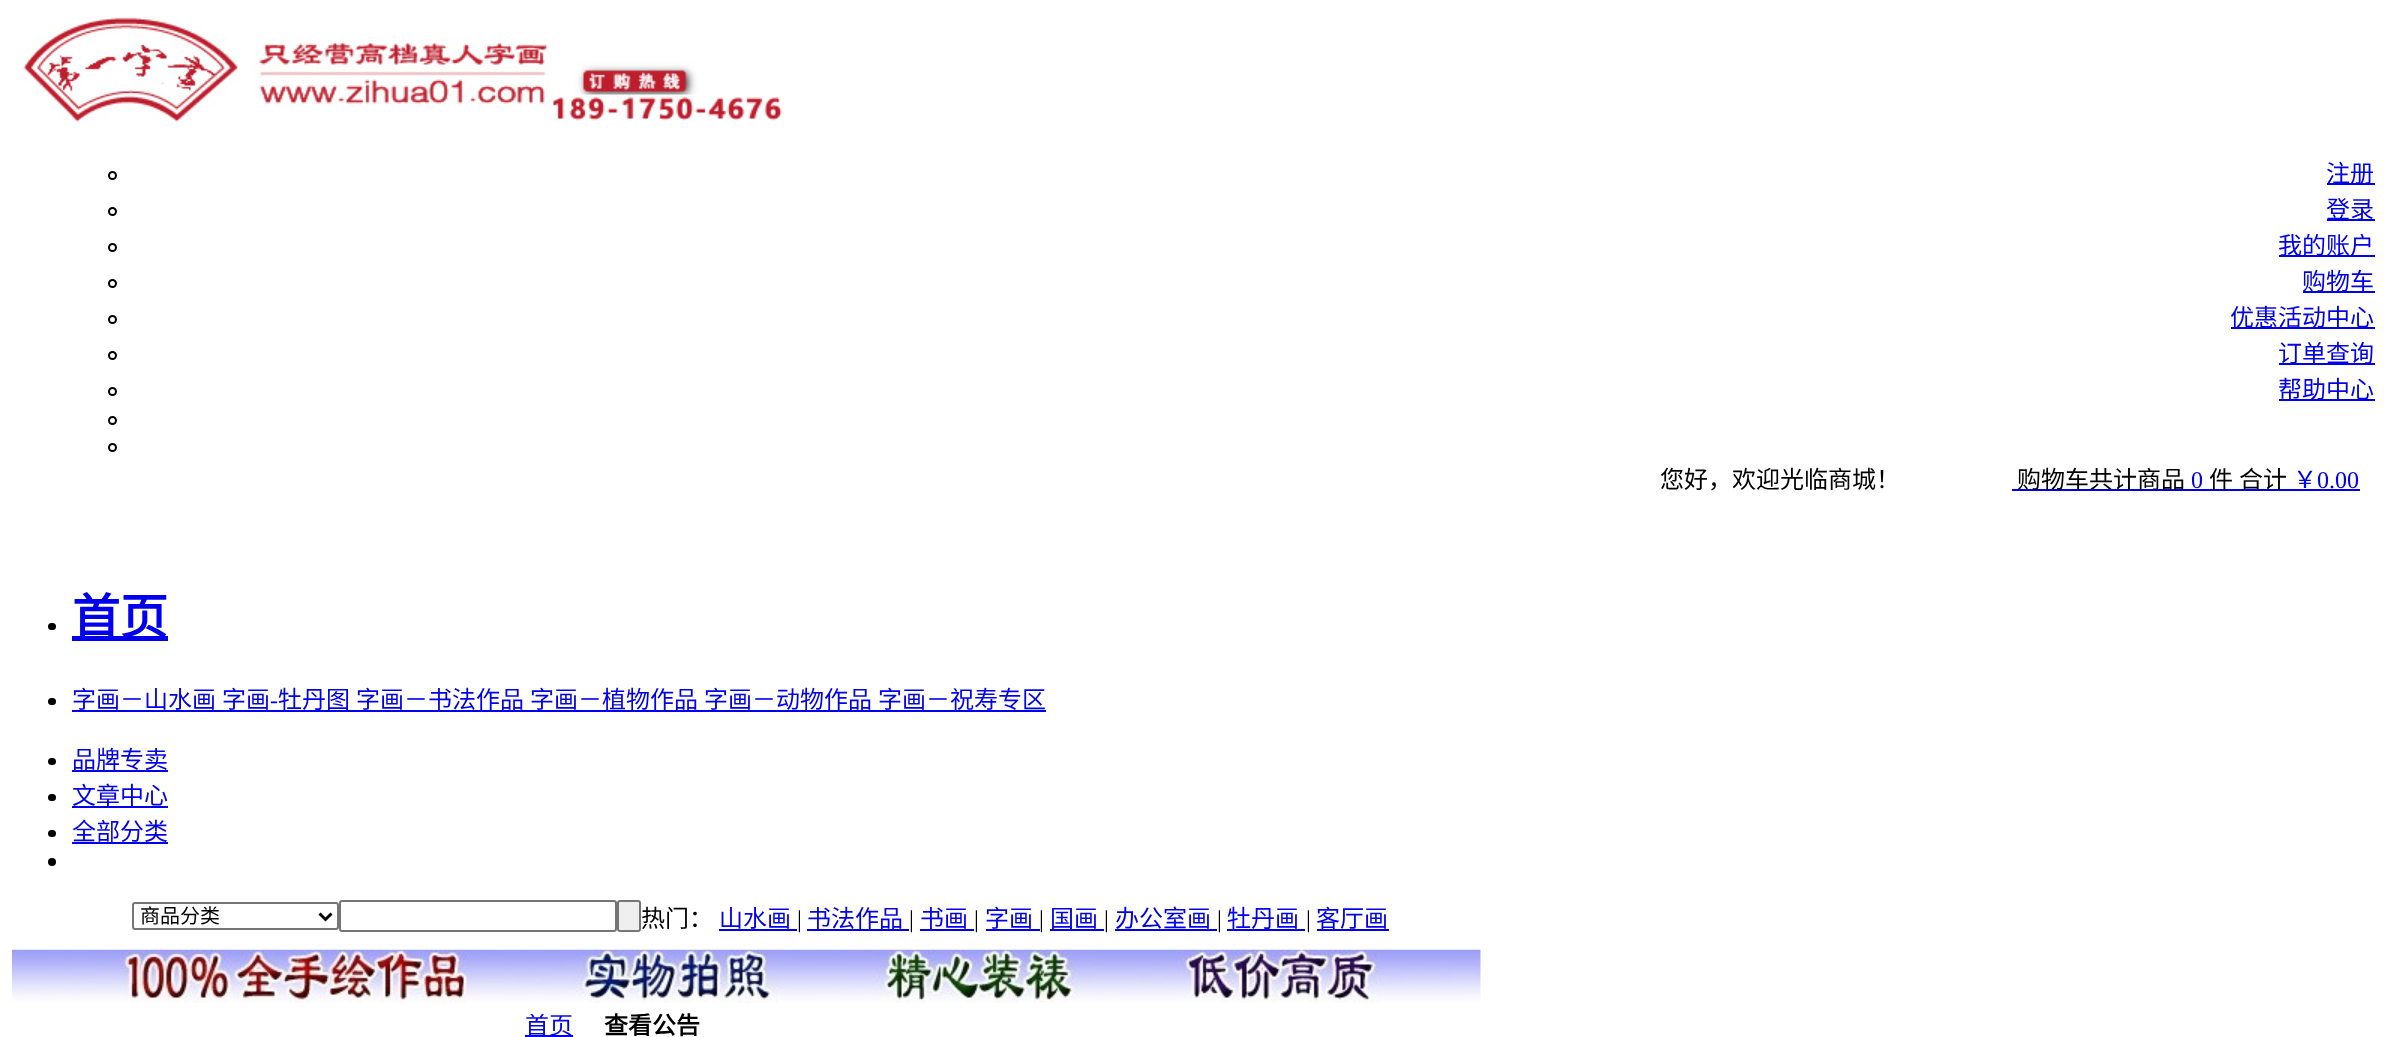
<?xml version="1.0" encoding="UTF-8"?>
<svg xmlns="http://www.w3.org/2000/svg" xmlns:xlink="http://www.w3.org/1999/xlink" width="2386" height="1037">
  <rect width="100%" height="100%" fill="#ffffff" />
  <image x="23" y="17" width="759" height="105" xlink:href="image1.png" />
  <circle cx="112.5" cy="175.5" r="3.5" fill="none" stroke="#000000" stroke-width="2" />
  <rect x="2327" y="183" width="48" height="2" fill="#0000ee" />
  <circle cx="112.5" cy="211.5" r="3.5" fill="none" stroke="#000000" stroke-width="2" />
  <rect x="2327" y="219" width="48" height="2" fill="#0000ee" />
  <circle cx="112.5" cy="247.5" r="3.5" fill="none" stroke="#000000" stroke-width="2" />
  <rect x="2279" y="255" width="96" height="2" fill="#0000ee" />
  <circle cx="112.5" cy="283.5" r="3.5" fill="none" stroke="#000000" stroke-width="2" />
  <rect x="2303" y="291" width="72" height="2" fill="#0000ee" />
  <circle cx="112.5" cy="319.5" r="3.5" fill="none" stroke="#000000" stroke-width="2" />
  <rect x="2231" y="327" width="144" height="2" fill="#0000ee" />
  <circle cx="112.5" cy="355.5" r="3.5" fill="none" stroke="#000000" stroke-width="2" />
  <rect x="2279" y="363" width="96" height="2" fill="#0000ee" />
  <circle cx="112.5" cy="391.5" r="3.5" fill="none" stroke="#000000" stroke-width="2" />
  <rect x="2279" y="399" width="96" height="2" fill="#0000ee" />
  <circle cx="112.5" cy="420.5" r="3.5" fill="none" stroke="#000000" stroke-width="2" />
  <circle cx="112.5" cy="447.5" r="3.5" fill="none" stroke="#000000" stroke-width="2" />
  <rect x="2012" y="489" width="348" height="2" fill="#0000ee" />
  <rect x="48" y="623" width="8" height="7" rx="3.5" fill="#000000" />
  <rect x="72" y="636" width="96" height="5" fill="#0000ee" />
  <rect x="48" y="698" width="8" height="7" rx="3.5" fill="#000000" />
  <rect x="72" y="710" width="974" height="2" fill="#0000ee" />
  <rect x="48" y="758" width="8" height="7" rx="3.5" fill="#000000" />
  <rect x="72" y="770" width="96" height="2" fill="#0000ee" />
  <rect x="48" y="794" width="8" height="7" rx="3.5" fill="#000000" />
  <rect x="72" y="806" width="96" height="2" fill="#0000ee" />
  <rect x="48" y="830" width="8" height="7" rx="3.5" fill="#000000" />
  <rect x="72" y="842" width="96" height="2" fill="#0000ee" />
  <circle cx="52" cy="862" r="4" fill="#000000" />
  <rect x="133" y="903" width="205" height="26" rx="2" fill="none" stroke="#767676" stroke-width="2" />
  <path d="M 319.5 913.5 l 6 6 l 6 -6" fill="none" stroke="#000000" stroke-width="3" />
  <rect x="340" y="901" width="276" height="30" rx="2" fill="none" stroke="#767676" stroke-width="2" />
  <rect x="618" y="901" width="22" height="30" rx="2" fill="#efefef" stroke="#767676" stroke-width="2" />
  <rect x="719" y="929" width="78" height="2" fill="#0000ee" />
  <rect x="807" y="929" width="102" height="2" fill="#0000ee" />
  <rect x="920" y="929" width="54" height="2" fill="#0000ee" />
  <rect x="986" y="929" width="54" height="2" fill="#0000ee" />
  <rect x="1050" y="929" width="54" height="2" fill="#0000ee" />
  <rect x="1115" y="929" width="102" height="2" fill="#0000ee" />
  <rect x="1227" y="929" width="78" height="2" fill="#0000ee" />
  <rect x="1317" y="929" width="72" height="2" fill="#0000ee" />
  <image x="12" y="949" width="1469" height="54" xlink:href="image2.png" />
  <rect x="525" y="1035" width="48" height="2" fill="#0000ee" />
  <text x="2326" y="182" style="font-family: Noto Sans CJK SC; font-size: 24px; fill: #0000ee">注册</text>
  <text x="2326" y="218" style="font-family: Noto Sans CJK SC; font-size: 24px; fill: #0000ee">登录</text>
  <text x="2278" y="254" style="font-family: Noto Sans CJK SC; font-size: 24px; fill: #0000ee">我的账户</text>
  <text x="2302" y="290" style="font-family: Noto Sans CJK SC; font-size: 24px; fill: #0000ee">购物车</text>
  <text x="2230" y="326" style="font-family: Noto Sans CJK SC; font-size: 24px; fill: #0000ee">优惠活动中心</text>
  <text x="2278" y="362" style="font-family: Noto Sans CJK SC; font-size: 24px; fill: #0000ee">订单查询</text>
  <text x="2278" y="398" style="font-family: Noto Sans CJK SC; font-size: 24px; fill: #0000ee">帮助中心</text>
  <text x="1660" y="488" style="font-family: Noto Sans CJK SC; font-size: 24px; fill: #000000">您好，欢迎光临商城！</text>
  <text x="2017" y="488" style="font-family: Noto Sans CJK SC; font-size: 24px; fill: #000000">购物车共计商品</text>
  <text x="2191" y="488" style="font-family: Liberation Serif; font-size: 24px; fill: #0000ee">0</text>
  <text x="2209" y="488" style="font-family: Noto Sans CJK SC; font-size: 24px; fill: #000000">件</text>
  <text x="2239" y="488" style="font-family: Noto Sans CJK SC; font-size: 24px; fill: #000000">合计</text>
  <text x="2293" y="488" style="font-family: Noto Sans CJK SC; font-size: 24px; fill: #0000ee">￥</text>
  <text x="2317" y="488" style="font-family: Liberation Serif; font-size: 24px; fill: #0000ee">0.00</text>
  <text x="72" y="634" style="font-family: Noto Sans CJK SC; font-size: 48px; font-weight: bold; fill: #0000ee">首页</text>
  <text x="72" y="708" style="font-family: Noto Sans CJK SC; font-size: 24px; fill: #0000ee">字画－山水画</text>
  <text x="222" y="708" style="font-family: Noto Sans CJK SC; font-size: 24px; fill: #0000ee">字画</text>
  <text x="270" y="708" style="font-family: Liberation Serif; font-size: 24px; fill: #0000ee">-</text>
  <text x="278" y="708" style="font-family: Noto Sans CJK SC; font-size: 24px; fill: #0000ee">牡丹图</text>
  <text x="356" y="708" style="font-family: Noto Sans CJK SC; font-size: 24px; fill: #0000ee">字画－书法作品</text>
  <text x="530" y="708" style="font-family: Noto Sans CJK SC; font-size: 24px; fill: #0000ee">字画－植物作品</text>
  <text x="704" y="708" style="font-family: Noto Sans CJK SC; font-size: 24px; fill: #0000ee">字画－动物作品</text>
  <text x="878" y="708" style="font-family: Noto Sans CJK SC; font-size: 24px; fill: #0000ee">字画－祝寿专区</text>
  <text x="72" y="768" style="font-family: Noto Sans CJK SC; font-size: 24px; fill: #0000ee">品牌专卖</text>
  <text x="72" y="804" style="font-family: Noto Sans CJK SC; font-size: 24px; fill: #0000ee">文章中心</text>
  <text x="72" y="840" style="font-family: Noto Sans CJK SC; font-size: 24px; fill: #0000ee">全部分类</text>
  <text x="140" y="923" style="font-family: Noto Sans CJK SC; font-size: 20px; fill: #000000">商品分类</text>
  <text x="641" y="927" style="font-family: Noto Sans CJK SC; font-size: 24px; fill: #000000">热门：</text>
  <text x="719" y="927" style="font-family: Noto Sans CJK SC; font-size: 24px; fill: #0000ee">山水画</text>
  <text x="797" y="927" style="font-family: Liberation Serif; font-size: 24px; fill: #000000">|</text>
  <text x="807" y="927" style="font-family: Noto Sans CJK SC; font-size: 24px; fill: #0000ee">书法作品</text>
  <text x="909" y="927" style="font-family: Liberation Serif; font-size: 24px; fill: #000000">|</text>
  <text x="920" y="927" style="font-family: Noto Sans CJK SC; font-size: 24px; fill: #0000ee">书画</text>
  <text x="974" y="927" style="font-family: Liberation Serif; font-size: 24px; fill: #000000">|</text>
  <text x="985" y="927" style="font-family: Noto Sans CJK SC; font-size: 24px; fill: #0000ee">字画</text>
  <text x="1039" y="927" style="font-family: Liberation Serif; font-size: 24px; fill: #000000">|</text>
  <text x="1050" y="927" style="font-family: Noto Sans CJK SC; font-size: 24px; fill: #0000ee">国画</text>
  <text x="1104" y="927" style="font-family: Liberation Serif; font-size: 24px; fill: #000000">|</text>
  <text x="1115" y="927" style="font-family: Noto Sans CJK SC; font-size: 24px; fill: #0000ee">办公室画</text>
  <text x="1217" y="927" style="font-family: Liberation Serif; font-size: 24px; fill: #000000">|</text>
  <text x="1227" y="927" style="font-family: Noto Sans CJK SC; font-size: 24px; fill: #0000ee">牡丹画</text>
  <text x="1306" y="927" style="font-family: Liberation Serif; font-size: 24px; fill: #000000">|</text>
  <text x="1316" y="927" style="font-family: Noto Sans CJK SC; font-size: 24px; fill: #0000ee">客厅画</text>
  <text x="525" y="1034" style="font-family: Noto Sans CJK SC; font-size: 24px; fill: #0000ee">首页</text>
  <text x="604" y="1034" style="font-family: Noto Sans CJK SC; font-size: 24px; font-weight: bold; fill: #000000">查看公告</text>
</svg>
